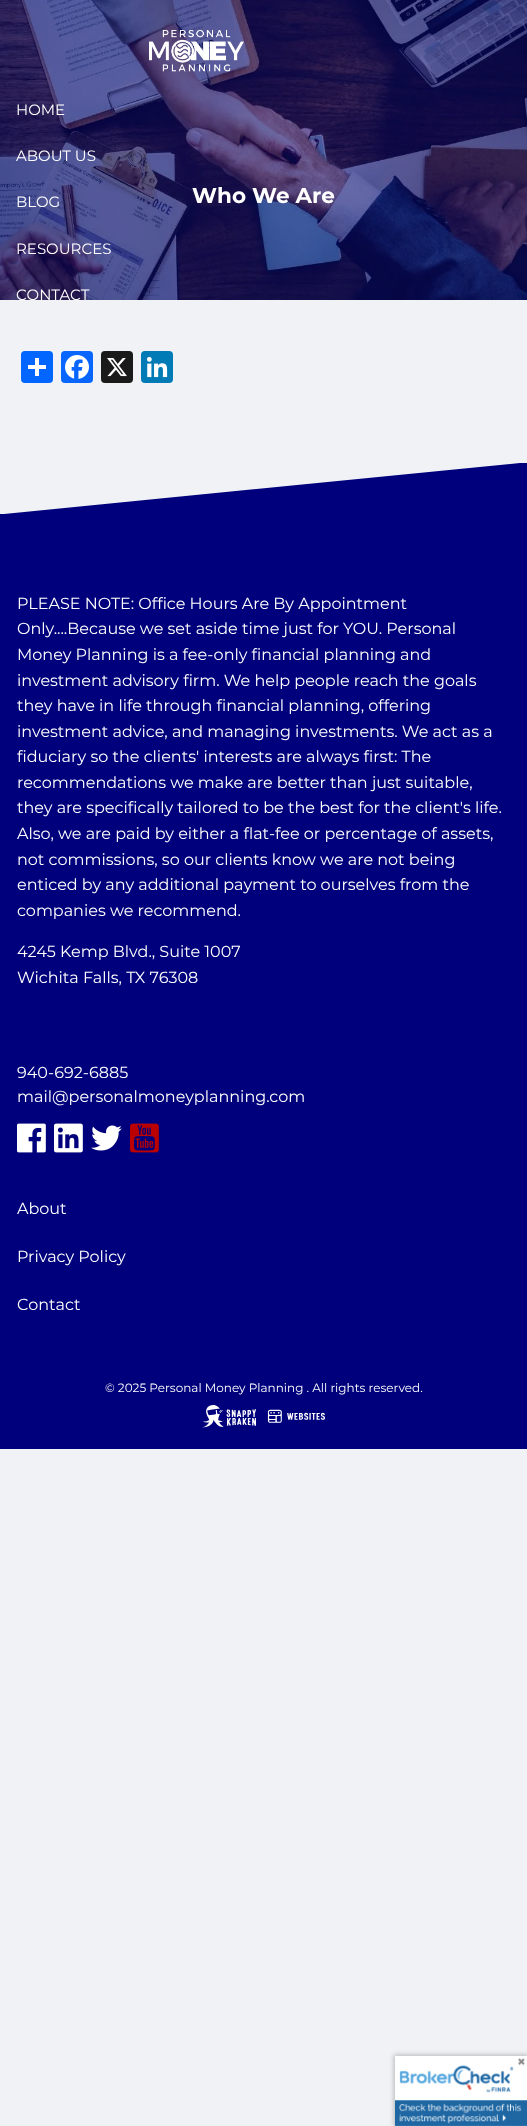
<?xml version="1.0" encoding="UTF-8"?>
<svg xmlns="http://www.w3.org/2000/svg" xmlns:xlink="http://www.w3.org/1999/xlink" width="527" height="2126">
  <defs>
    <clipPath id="clip1"><path d="M 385 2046 h 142 v 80 h -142 z m 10 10 h 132 v 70 h -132 z" clip-rule="evenodd" /></clipPath>
  </defs>
  <rect width="100%" height="100%" fill="#f0f2f5" />
  <rect y="463" width="527" height="986" fill="#00007d" />
  <image x="0" y="0" width="527" height="300" xlink:href="image2.png" />
  <image x="149" y="30" width="95" height="42" xlink:href="image1.png" />
  <rect x="21" y="351" width="32" height="32" rx="4" fill="#0166ff" />
  <rect x="35" y="358" width="4" height="18" fill="#ffffff" />
  <rect x="28" y="365" width="18" height="4" fill="#ffffff" />
  <rect x="61" y="351" width="32" height="32" rx="4" fill="#0866ff" />
  <image x="65" y="355" width="24" height="24" xlink:href="image3.png" />
  <rect x="101" y="351" width="32" height="32" rx="4" fill="#1a1a1a" />
  <image x="107" y="358" width="20" height="19" xlink:href="image4.png" />
  <rect x="141" y="351" width="32" height="32" rx="4" fill="#007bb5" />
  <image x="146" y="356" width="22" height="22" xlink:href="image5.png" />
  <path d="M 0 462 v 52 h 4 l 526 -52 z" fill="#f0f2f5" />
  <image x="17" y="1123" width="29" height="30" xlink:href="image6.png" />
  <image x="54" y="1123" width="29" height="30" xlink:href="image7.png" />
  <image x="91" y="1125" width="31" height="26" xlink:href="image8.png" />
  <image x="130" y="1123" width="29" height="30" xlink:href="image9.png" />
  <image x="202" y="1405" width="123" height="23" xlink:href="image10.png" />
  <rect x="395" y="2056" width="132" height="70" fill="#ffffff" />
  <g clip-path="url(#clip1)">
    <rect x="394" y="2055" width="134" height="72" fill="#000000" fill-opacity="0.25" filter="blur(2.5px)" />
  </g>
  <image x="395" y="2058" width="132" height="68" xlink:href="image11.png" />
  <text x="16" y="115" style="font-family: Montserrat; font-size: 15px; font-weight: 100; fill: #ffffff">HOME</text>
  <text x="16" y="161" style="font-family: Montserrat; font-size: 15px; font-weight: 100; fill: #ffffff">ABOUT US</text>
  <text x="16" y="207" style="font-family: Montserrat; font-size: 15px; font-weight: 100; fill: #ffffff">BLOG</text>
  <text x="16" y="254" style="font-family: Montserrat; font-size: 15px; font-weight: 100; fill: #ffffff">RESOURCES</text>
  <text x="16" y="300" style="font-family: Montserrat; font-size: 15px; font-weight: 100; fill: #ffffff">CONTACT</text>
  <text x="192" y="203" style="font-family: 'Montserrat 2'; font-size: 21.5px; font-weight: 100; fill: #ffffff">Who We Are</text>
  <text x="17" y="609" style="font-family: Montserrat; font-size: 16px; font-weight: 100; fill: #ffffff">PLEASE NOTE: Office Hours Are By Appointment</text>
  <text x="17" y="634" style="font-family: Montserrat; font-size: 16px; font-weight: 100; fill: #ffffff">Only....Because we set aside time just for YOU. Personal</text>
  <text x="17" y="660" style="font-family: Montserrat; font-size: 16px; font-weight: 100; fill: #ffffff">Money Planning is a fee-only financial planning and</text>
  <text x="17" y="686" style="font-family: Montserrat; font-size: 16px; font-weight: 100; fill: #ffffff">investment advisory firm. We help people reach the goals</text>
  <text x="17" y="711" style="font-family: Montserrat; font-size: 16px; font-weight: 100; fill: #ffffff">they have in life through financial planning, offering</text>
  <text x="17" y="737" style="font-family: Montserrat; font-size: 16px; font-weight: 100; fill: #ffffff">investment advice, and managing investments. We act as a</text>
  <text x="17" y="762" style="font-family: Montserrat; font-size: 16px; font-weight: 100; fill: #ffffff">fiduciary so the clients' interests are always first: The</text>
  <text x="17" y="788" style="font-family: Montserrat; font-size: 16px; font-weight: 100; fill: #ffffff">recommendations we make are better than just suitable,</text>
  <text x="17" y="813" style="font-family: Montserrat; font-size: 16px; font-weight: 100; fill: #ffffff">they are specifically tailored to be the best for the client's life.</text>
  <text x="17" y="839" style="font-family: Montserrat; font-size: 16px; font-weight: 100; fill: #ffffff">Also, we are paid by either a flat-fee or percentage of assets,</text>
  <text x="17" y="865" style="font-family: Montserrat; font-size: 16px; font-weight: 100; fill: #ffffff">not commissions, so our clients know we are not being</text>
  <text x="17" y="890" style="font-family: Montserrat; font-size: 16px; font-weight: 100; fill: #ffffff">enticed by any additional payment to ourselves from the</text>
  <text x="17" y="916" style="font-family: Montserrat; font-size: 16px; font-weight: 100; fill: #ffffff">companies we recommend.</text>
  <text x="17" y="957" style="font-family: Montserrat; font-size: 16px; font-weight: 100; fill: #ffffff">4245 Kemp Blvd., Suite 1007</text>
  <text x="17" y="983" style="font-family: Montserrat; font-size: 16px; font-weight: 100; fill: #ffffff">Wichita Falls, TX 76308</text>
  <text x="17" y="1078" style="font-family: Montserrat; font-size: 16px; font-weight: 100; fill: #ffffff">940-692-6885</text>
  <text x="17" y="1102" style="font-family: Montserrat; font-size: 16px; font-weight: 100; fill: #ffffff">mail@personalmoneyplanning.com</text>
  <text x="17" y="1214" style="font-family: Montserrat; font-size: 16px; font-weight: 100; fill: #ffffff">About</text>
  <text x="17" y="1262" style="font-family: Montserrat; font-size: 16px; font-weight: 100; fill: #ffffff">Privacy Policy</text>
  <text x="17" y="1310" style="font-family: Montserrat; font-size: 16px; font-weight: 100; fill: #ffffff">Contact</text>
  <text x="105" y="1392" style="font-family: Montserrat; font-size: 12px; font-weight: 100; fill: #ffffff">© 2025 Personal Money Planning . All rights reserved.</text>
</svg>
